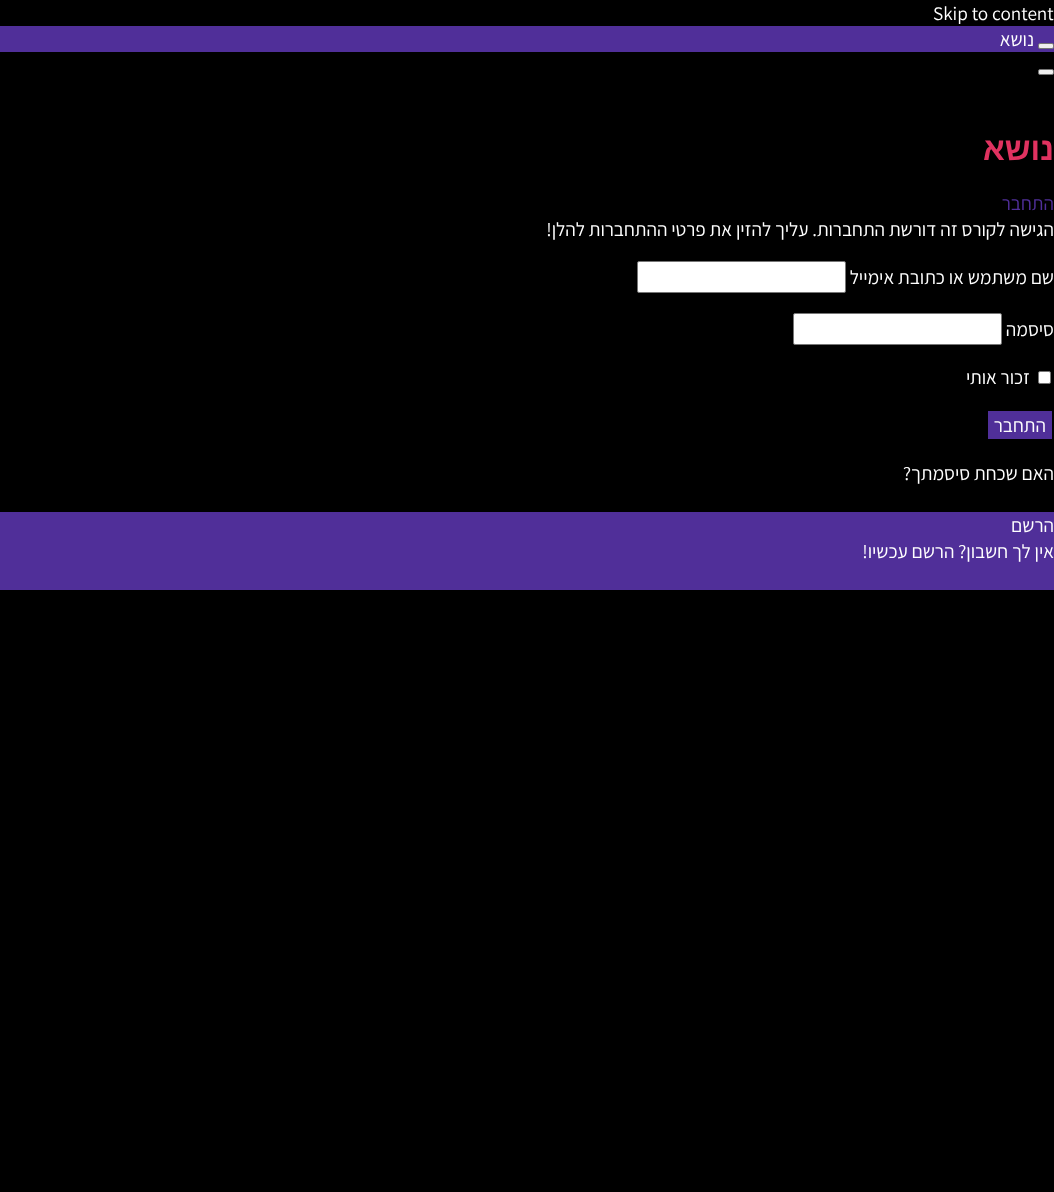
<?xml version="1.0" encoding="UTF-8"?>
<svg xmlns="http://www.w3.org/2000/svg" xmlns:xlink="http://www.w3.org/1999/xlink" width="1054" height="1192">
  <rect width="100%" height="100%" fill="#000000" />
  <rect y="26" width="1054" height="26" fill="#502f99" />
  <rect x="1038.5" y="43.5" width="15" height="5" rx="1.5" fill="#efefef" stroke="#767676" />
  <rect x="1038.5" y="69.5" width="15" height="5" rx="1.5" fill="#efefef" stroke="#767676" />
  <rect x="637.5" y="261.5" width="208" height="31" rx="1.5" fill="#ffffff" stroke="#767676" />
  <rect x="793.5" y="313.5" width="208" height="31" rx="1.5" fill="#ffffff" stroke="#767676" />
  <rect x="1038.5" y="371.5" width="12" height="12" rx="1.5" fill="#ffffff" stroke="#767676" />
  <rect x="988" y="411" width="64" height="28" fill="#502f99" />
  <rect y="512" width="1054" height="78" fill="#502f99" />
  <text x="933" y="20" style="font-family: Assistant; font-size: 19.25px; fill: #ffffff">Skip to content</text>
  <text x="1034" y="46" style="font-family: Assistant; font-size: 19.25px; direction: rtl; fill: #ffffff">נושא</text>
  <text x="1054" y="160" style="font-family: Liberation Sans; font-size: 32px; font-weight: bold; direction: rtl; fill: #e03260">נושא</text>
  <text x="1054" y="210" style="font-family: Assistant; font-size: 19.25px; direction: rtl; fill: #502f99">התחבר</text>
  <text x="1054" y="236" style="font-family: Assistant; font-size: 19.25px; direction: rtl; fill: #ffffff">הגישה לקורס זה דורשת התחברות. עליך להזין את פרטי ההתחברות להלן!</text>
  <text x="1054" y="284" style="font-family: Assistant; font-size: 19.25px; direction: rtl; fill: #ffffff">שם משתמש או כתובת אימייל</text>
  <text x="1054" y="336" style="font-family: Assistant; font-size: 19.25px; direction: rtl; fill: #ffffff">סיסמה</text>
  <text x="1030" y="384" style="font-family: Assistant; font-size: 19.25px; direction: rtl; fill: #ffffff">זכור אותי</text>
  <text x="1046" y="432" style="font-family: Assistant; font-size: 19.25px; direction: rtl; fill: #ffffff">התחבר</text>
  <text x="1054" y="480" style="font-family: Assistant; font-size: 19.25px; direction: rtl; fill: #ffffff">האם שכחת סיסמתך?</text>
  <text x="1054" y="532" style="font-family: Assistant; font-size: 19.25px; direction: rtl; fill: #ffffff">הרשם</text>
  <text x="1054" y="558" style="font-family: Assistant; font-size: 19.25px; direction: rtl; fill: #ffffff">אין לך חשבון? הרשם עכשיו!</text>
</svg>
